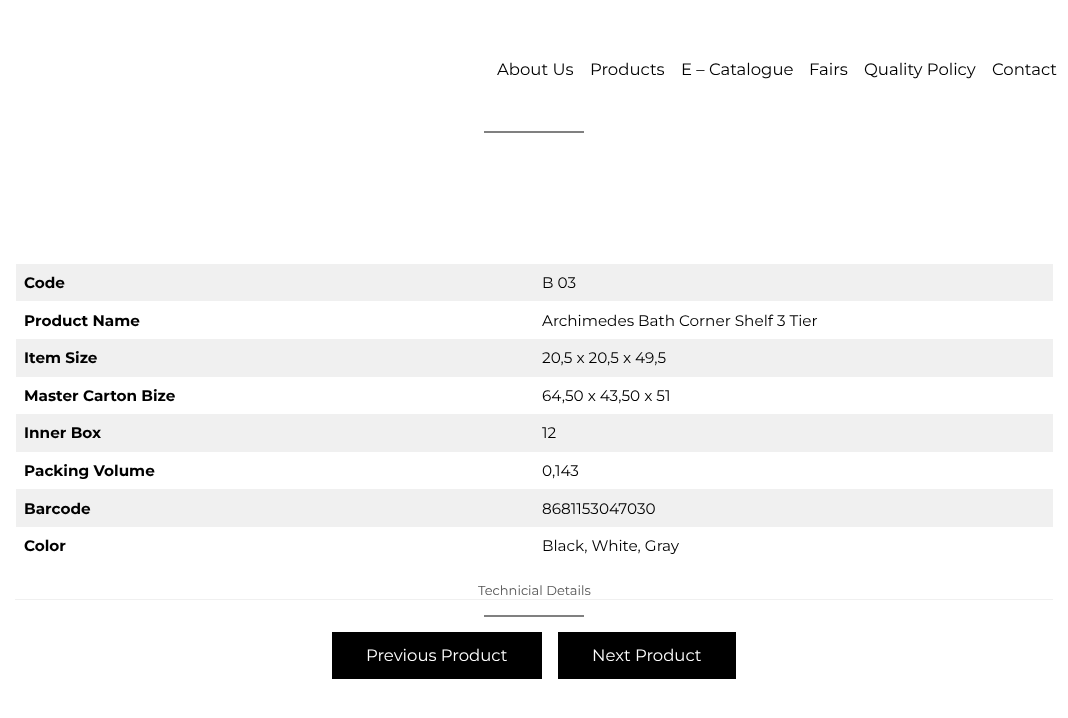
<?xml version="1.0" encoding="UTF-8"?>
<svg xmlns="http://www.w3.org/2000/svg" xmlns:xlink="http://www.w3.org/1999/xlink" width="1068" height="718">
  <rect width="100%" height="100%" fill="#ffffff" />
  <rect x="484" y="131" width="100" height="2" fill="#808080" />
  <rect x="15" y="599" width="1038" height="1" fill="#f0f0f0" />
  <rect x="16" y="264" width="1037" height="37" fill="#f0f0f0" />
  <rect x="16" y="339" width="1037" height="38" fill="#f0f0f0" />
  <rect x="16" y="414" width="1037" height="38" fill="#f0f0f0" />
  <rect x="16" y="489" width="1037" height="38" fill="#f0f0f0" />
  <rect x="484" y="615" width="100" height="2" fill="#808080" />
  <rect x="332" y="632" width="210" height="47" fill="#000000" />
  <rect x="558" y="632" width="178" height="47" fill="#000000" />
  <text x="497" y="75" style="font-family: Montserrat; font-size: 16.5px; fill: #000000">About Us</text>
  <text x="590" y="75" style="font-family: Montserrat; font-size: 16.5px; fill: #000000">Products</text>
  <text x="681" y="75" style="font-family: Montserrat; font-size: 16.5px; fill: #000000">E – Catalogue</text>
  <text x="809" y="75" style="font-family: Montserrat; font-size: 16.5px; fill: #000000">Fairs</text>
  <text x="864" y="75" style="font-family: Montserrat; font-size: 16.5px; fill: #000000">Quality Policy</text>
  <text x="992" y="75" style="font-family: Montserrat; font-size: 16.5px; fill: #000000">Contact</text>
  <text x="24" y="288" style="font-family: Montserrat; font-size: 15.25px; font-weight: bold; fill: #000000">Code</text>
  <text x="542" y="288" style="font-family: Montserrat; font-size: 15.25px; fill: #000000">B 03</text>
  <text x="24" y="326" style="font-family: Montserrat; font-size: 15.25px; font-weight: bold; fill: #000000">Product Name</text>
  <text x="542" y="326" style="font-family: Montserrat; font-size: 15.25px; fill: #000000">Archimedes Bath Corner Shelf 3 Tier</text>
  <text x="24" y="363" style="font-family: Montserrat; font-size: 15.25px; font-weight: bold; fill: #000000">Item Size</text>
  <text x="542" y="363" style="font-family: Montserrat; font-size: 15.25px; fill: #000000">20,5 x 20,5 x 49,5</text>
  <text x="24" y="401" style="font-family: Montserrat; font-size: 15.25px; font-weight: bold; fill: #000000">Master Carton Bize</text>
  <text x="542" y="401" style="font-family: Montserrat; font-size: 15.25px; fill: #000000">64,50 x 43,50 x 51</text>
  <text x="24" y="438" style="font-family: Montserrat; font-size: 15.25px; font-weight: bold; fill: #000000">Inner Box</text>
  <text x="542" y="438" style="font-family: Montserrat; font-size: 15.25px; fill: #000000">12</text>
  <text x="24" y="476" style="font-family: Montserrat; font-size: 15.25px; font-weight: bold; fill: #000000">Packing Volume</text>
  <text x="542" y="476" style="font-family: Montserrat; font-size: 15.25px; fill: #000000">0,143</text>
  <text x="24" y="514" style="font-family: Montserrat; font-size: 15.25px; font-weight: bold; fill: #000000">Barcode</text>
  <text x="542" y="514" style="font-family: Montserrat; font-size: 15.25px; fill: #000000">8681153047030</text>
  <text x="24" y="551" style="font-family: Montserrat; font-size: 15.25px; font-weight: bold; fill: #000000">Color</text>
  <text x="542" y="551" style="font-family: Montserrat; font-size: 15.25px; fill: #000000">Black, White, Gray</text>
  <text x="478" y="595" style="font-family: Montserrat; font-size: 13px; fill: #555555">Technicial Details</text>
  <text x="366" y="661" style="font-family: Montserrat; font-size: 16.5px; fill: #ffffff">Previous Product</text>
  <text x="592" y="661" style="font-family: Montserrat; font-size: 16.5px; fill: #ffffff">Next Product</text>
</svg>
